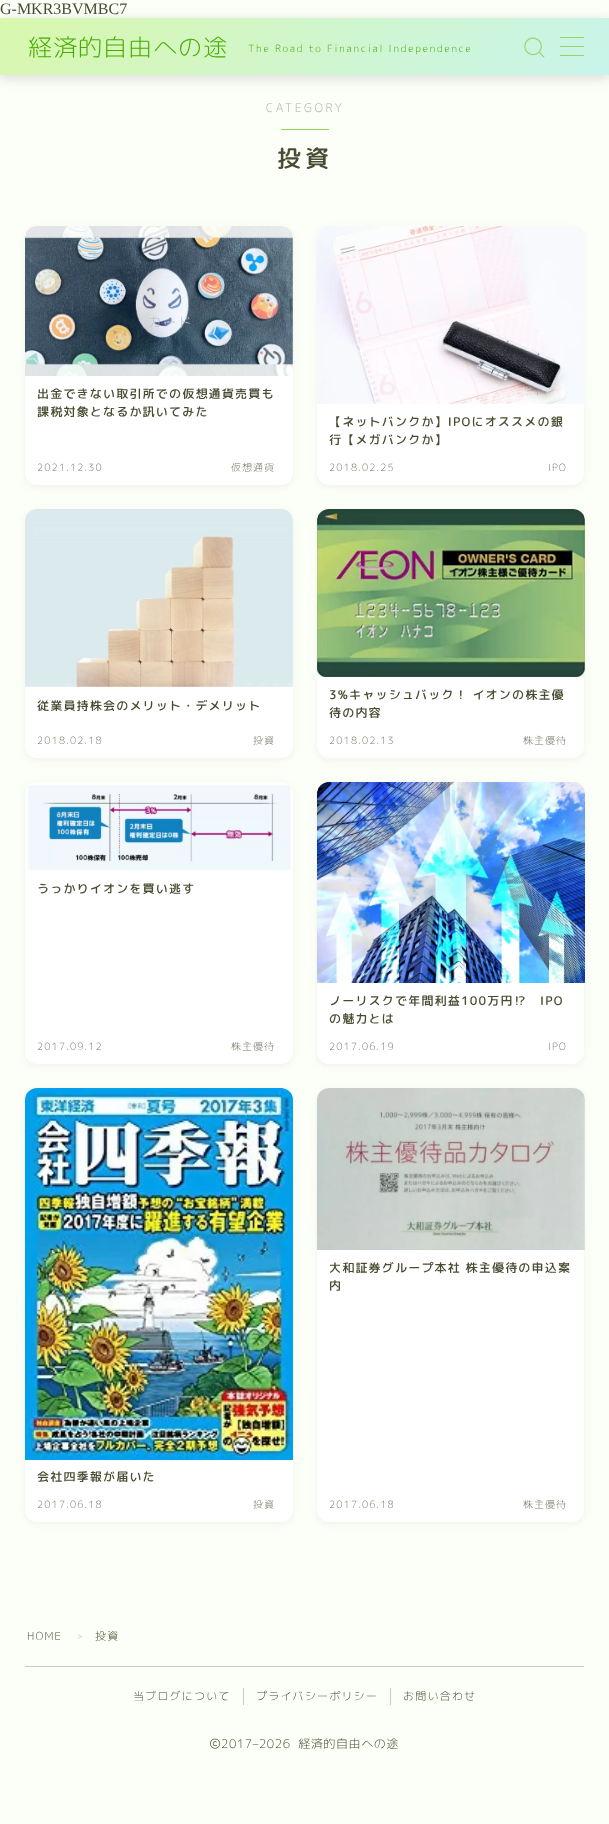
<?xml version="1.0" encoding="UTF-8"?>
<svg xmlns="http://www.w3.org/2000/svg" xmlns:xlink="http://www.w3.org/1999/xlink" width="609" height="1824">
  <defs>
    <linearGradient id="g1" gradientUnits="userSpaceOnUse" x1="138" y1="-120" x2="471" y2="213"><stop offset="0" stop-color="#d9f7ad" /><stop offset="1" stop-color="#c8f4eb" /></linearGradient>
  </defs>
  <rect width="100%" height="100%" fill="#fcfff7" />
  <rect x="-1" y="20" width="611" height="59" fill="#a3a3a3" fill-opacity="0.34" filter="blur(6px)" />
  <rect y="18" width="609" height="57" fill="url(#g1)" />
  <image x="524" y="37" width="21" height="21" xlink:href="image1.png" />
  <rect x="560" y="37" width="24" height="1" fill="#9ad365" />
  <rect x="560" y="46" width="24" height="1" fill="#9ad365" />
  <rect x="560" y="55" width="24" height="1" fill="#9ad365" />
  <rect x="281" y="129" width="48" height="1" fill="#8fd84b" />
  <rect x="25" y="228" width="268" height="259" rx="12" fill="#aaaaaa" fill-opacity="0.15" filter="blur(3px)" />
  <rect x="25" y="226" width="268" height="259" rx="12" fill="#ffffff" />
  <image x="25" y="226" width="268" height="150" xlink:href="image2.png" />
  <rect x="317" y="228" width="267" height="259" rx="12" fill="#aaaaaa" fill-opacity="0.15" filter="blur(3px)" />
  <rect x="317" y="226" width="267" height="259" rx="12" fill="#ffffff" />
  <image x="317" y="226" width="268" height="178" xlink:href="image3.png" />
  <rect x="25" y="511" width="268" height="249" rx="12" fill="#aaaaaa" fill-opacity="0.15" filter="blur(3px)" />
  <rect x="25" y="509" width="268" height="249" rx="12" fill="#ffffff" />
  <image x="25" y="509" width="268" height="178" xlink:href="image4.png" />
  <rect x="317" y="511" width="267" height="249" rx="12" fill="#aaaaaa" fill-opacity="0.15" filter="blur(3px)" />
  <rect x="317" y="509" width="267" height="249" rx="12" fill="#ffffff" />
  <image x="317" y="509" width="268" height="168" xlink:href="image5.png" />
  <rect x="25" y="784" width="268" height="282" rx="12" fill="#aaaaaa" fill-opacity="0.15" filter="blur(3px)" />
  <rect x="25" y="782" width="268" height="282" rx="12" fill="#ffffff" />
  <image x="28" y="785" width="263" height="86" xlink:href="image6.png" />
  <rect x="317" y="784" width="267" height="282" rx="12" fill="#aaaaaa" fill-opacity="0.15" filter="blur(3px)" />
  <rect x="317" y="782" width="267" height="282" rx="12" fill="#ffffff" />
  <image x="317" y="782" width="268" height="201" xlink:href="image7.png" />
  <rect x="25" y="1090" width="268" height="434" rx="12" fill="#aaaaaa" fill-opacity="0.15" filter="blur(3px)" />
  <rect x="25" y="1088" width="268" height="434" rx="12" fill="#ffffff" />
  <image x="25" y="1088" width="268" height="372" xlink:href="image8.png" />
  <rect x="317" y="1090" width="267" height="434" rx="12" fill="#aaaaaa" fill-opacity="0.15" filter="blur(3px)" />
  <rect x="317" y="1088" width="267" height="434" rx="12" fill="#ffffff" />
  <image x="317" y="1088" width="268" height="162" xlink:href="image9.png" />
  <rect x="25" y="1666" width="559" height="1" fill="#c6c9bc" />
  <rect x="243" y="1688" width="1" height="17" fill="#c6c9bc" />
  <rect x="390" y="1688" width="1" height="17" fill="#c6c9bc" />
  <image x="210" y="1738" width="10" height="11" xlink:href="image10.png" />
  <text x="0" y="14" style="font-family: Liberation Serif; font-size: 16px; fill: #494c32">G-MKR3BVMBC7</text>
  <text x="28" y="56" style="font-family: 'Rounded Mplus 1c'; font-size: 24px; font-weight: 300; letter-spacing: 1px; fill: #48ad00">経済的自由への途</text>
  <text x="248" y="52" style="font-family: 'Rounded Mplus 1c'; font-size: 10px; font-weight: 300; letter-spacing: 1.8px; fill: #48ad00">The Road to Financial Independence</text>
  <text x="148" y="327" style="font-family: 'Rounded Mplus 1c'; font-size: 13.5px; font-weight: 300; letter-spacing: 1.5px; fill: #b8c0cc">カード</text>
  <text x="266" y="112" style="font-family: 'Rounded Mplus 1c'; font-size: 12px; font-weight: 300; letter-spacing: 2.5px; fill: #abae9e">CATEGORY</text>
  <text x="277" y="167" style="font-family: 'Rounded Mplus 1c'; font-size: 24px; font-weight: 500; letter-spacing: 4px; fill: #494c32">投資</text>
  <text x="37" y="398" style="font-family: 'Rounded Mplus 1c'; font-size: 12px; font-weight: 500; letter-spacing: 1.2px; fill: #494c32">出金できない取引所での仮想通貨売買も</text>
  <text x="37" y="416" style="font-family: 'Rounded Mplus 1c'; font-size: 12px; font-weight: 500; letter-spacing: 1.2px; fill: #494c32">課税対象となるか訊いてみた</text>
  <text x="37" y="471" style="font-family: 'Rounded Mplus 1c'; font-size: 10px; font-weight: 300; letter-spacing: 1.2px; fill: #777965">2021.12.30</text>
  <text x="231" y="471" style="font-family: 'Rounded Mplus 1c'; font-size: 10px; font-weight: 300; letter-spacing: 1px; fill: #777965">仮想通貨</text>
  <text x="329" y="426" style="font-family: 'Rounded Mplus 1c'; font-size: 12px; font-weight: 500; letter-spacing: 1.2px; fill: #494c32">【ネットバンクか】IPOにオススメの銀</text>
  <text x="329" y="444" style="font-family: 'Rounded Mplus 1c'; font-size: 12px; font-weight: 500; letter-spacing: 1.2px; fill: #494c32">行【メガバンクか】</text>
  <text x="329" y="471" style="font-family: 'Rounded Mplus 1c'; font-size: 10px; font-weight: 300; letter-spacing: 1.2px; fill: #777965">2018.02.25</text>
  <text x="548" y="471" style="font-family: 'Rounded Mplus 1c'; font-size: 10px; font-weight: 300; letter-spacing: 1px; fill: #777965">IPO</text>
  <text x="37" y="710" style="font-family: 'Rounded Mplus 1c'; font-size: 12px; font-weight: 500; letter-spacing: 1.2px; fill: #494c32">従業員持株会のメリット・デメリット</text>
  <text x="37" y="744" style="font-family: 'Rounded Mplus 1c'; font-size: 10px; font-weight: 300; letter-spacing: 1.2px; fill: #777965">2018.02.18</text>
  <text x="253" y="744" style="font-family: 'Rounded Mplus 1c'; font-size: 10px; font-weight: 300; letter-spacing: 1px; fill: #777965">投資</text>
  <text x="329" y="699" style="font-family: 'Rounded Mplus 1c'; font-size: 12px; font-weight: 500; letter-spacing: 1.2px; fill: #494c32">3%キャッシュバック！ イオンの株主優</text>
  <text x="329" y="717" style="font-family: 'Rounded Mplus 1c'; font-size: 12px; font-weight: 500; letter-spacing: 1.2px; fill: #494c32">待の内容</text>
  <text x="329" y="744" style="font-family: 'Rounded Mplus 1c'; font-size: 10px; font-weight: 300; letter-spacing: 1.2px; fill: #777965">2018.02.13</text>
  <text x="523" y="744" style="font-family: 'Rounded Mplus 1c'; font-size: 10px; font-weight: 300; letter-spacing: 1px; fill: #777965">株主優待</text>
  <text x="37" y="893" style="font-family: 'Rounded Mplus 1c'; font-size: 12px; font-weight: 500; letter-spacing: 1.2px; fill: #494c32">うっかりイオンを買い逃す</text>
  <text x="37" y="1050" style="font-family: 'Rounded Mplus 1c'; font-size: 10px; font-weight: 300; letter-spacing: 1.2px; fill: #777965">2017.09.12</text>
  <text x="231" y="1050" style="font-family: 'Rounded Mplus 1c'; font-size: 10px; font-weight: 300; letter-spacing: 1px; fill: #777965">株主優待</text>
  <text x="329" y="1005" style="font-family: 'Rounded Mplus 1c'; font-size: 12px; font-weight: 500; letter-spacing: 1.2px; fill: #494c32">ノーリスクで年間利益100万円⁉　IPO</text>
  <text x="329" y="1023" style="font-family: 'Rounded Mplus 1c'; font-size: 12px; font-weight: 500; letter-spacing: 1.2px; fill: #494c32">の魅力とは</text>
  <text x="329" y="1050" style="font-family: 'Rounded Mplus 1c'; font-size: 10px; font-weight: 300; letter-spacing: 1.2px; fill: #777965">2017.06.19</text>
  <text x="548" y="1050" style="font-family: 'Rounded Mplus 1c'; font-size: 10px; font-weight: 300; letter-spacing: 1px; fill: #777965">IPO</text>
  <text x="37" y="1481" style="font-family: 'Rounded Mplus 1c'; font-size: 12px; font-weight: 500; letter-spacing: 1.2px; fill: #494c32">会社四季報が届いた</text>
  <text x="37" y="1508" style="font-family: 'Rounded Mplus 1c'; font-size: 10px; font-weight: 300; letter-spacing: 1.2px; fill: #777965">2017.06.18</text>
  <text x="253" y="1508" style="font-family: 'Rounded Mplus 1c'; font-size: 10px; font-weight: 300; letter-spacing: 1px; fill: #777965">投資</text>
  <text x="329" y="1272" style="font-family: 'Rounded Mplus 1c'; font-size: 12px; font-weight: 500; letter-spacing: 1.2px; fill: #494c32">大和証券グループ本社 株主優待の申込案</text>
  <text x="329" y="1290" style="font-family: 'Rounded Mplus 1c'; font-size: 12px; font-weight: 500; letter-spacing: 1.2px; fill: #494c32">内</text>
  <text x="329" y="1508" style="font-family: 'Rounded Mplus 1c'; font-size: 10px; font-weight: 300; letter-spacing: 1.2px; fill: #777965">2017.06.18</text>
  <text x="523" y="1508" style="font-family: 'Rounded Mplus 1c'; font-size: 10px; font-weight: 300; letter-spacing: 1px; fill: #777965">株主優待</text>
  <text x="27" y="1640" style="font-family: 'Rounded Mplus 1c'; font-size: 11px; font-weight: 300; letter-spacing: 1.2px; fill: #494c32">HOME</text>
  <text x="76" y="1639" style="font-family: 'Rounded Mplus 1c'; font-size: 7px; font-weight: 300; letter-spacing: 1px; fill: #7f826d">＞</text>
  <text x="95" y="1640" style="font-family: 'Rounded Mplus 1c'; font-size: 11px; font-weight: 300; letter-spacing: 1.2px; fill: #494c32">投資</text>
  <text x="133" y="1700" style="font-family: 'Rounded Mplus 1c'; font-size: 11px; font-weight: 300; letter-spacing: 1.2px; fill: #494c32">当ブログについて</text>
  <text x="256" y="1700" style="font-family: 'Rounded Mplus 1c'; font-size: 11px; font-weight: 300; letter-spacing: 1.2px; fill: #494c32">プライバシーポリシー</text>
  <text x="403" y="1700" style="font-family: 'Rounded Mplus 1c'; font-size: 11px; font-weight: 300; letter-spacing: 1.2px; fill: #494c32">お問い合わせ</text>
  <text x="221" y="1748" style="font-family: 'Rounded Mplus 1c'; font-size: 12px; font-weight: 300; letter-spacing: 0.6px; fill: #494c32" xml:space="preserve">2017–2026  経済的自由への途</text>
</svg>
